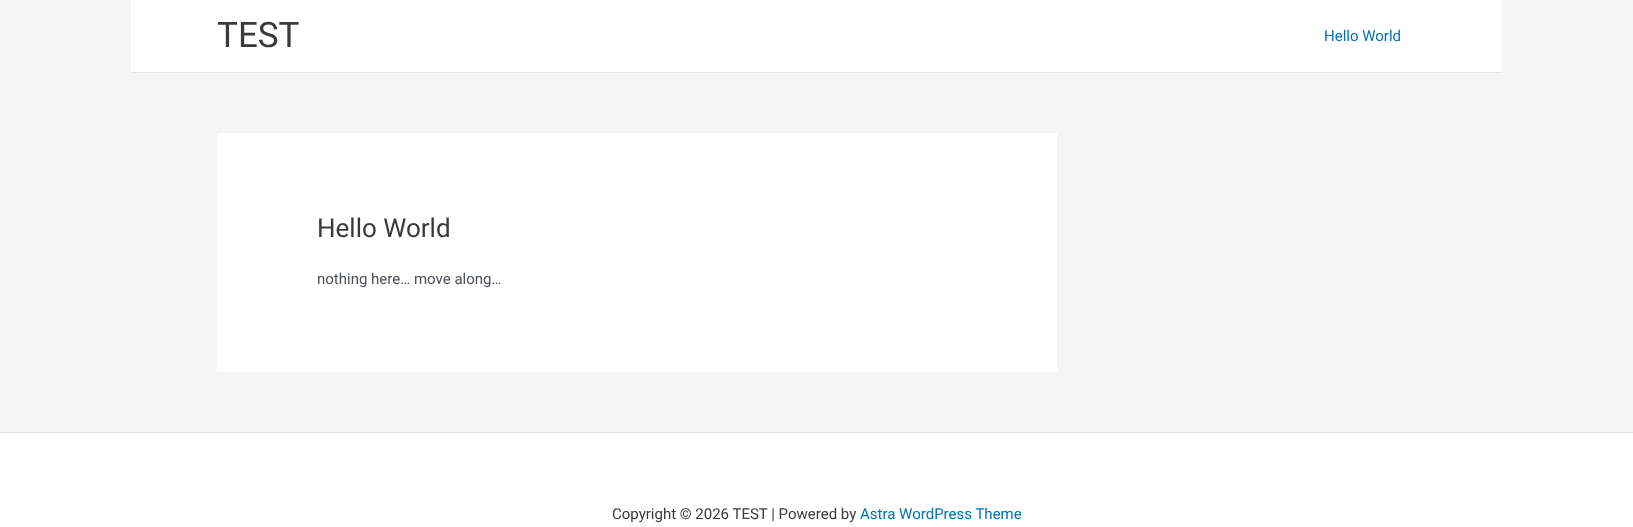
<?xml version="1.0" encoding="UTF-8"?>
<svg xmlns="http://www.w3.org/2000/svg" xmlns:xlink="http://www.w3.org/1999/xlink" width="1633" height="527">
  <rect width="100%" height="100%" fill="#f5f5f5" />
  <rect x="131" width="1371" height="72" fill="#ffffff" />
  <rect x="131" y="72" width="1371" height="1" fill="#e5e5e5" />
  <rect x="217" y="133" width="840" height="239" fill="#ffffff" />
  <rect y="433" width="1633" height="94" fill="#ffffff" />
  <rect y="432" width="1633" height="1" fill="#e5e5e5" />
  <text x="217" y="47" style="font-family: Roboto; font-size: 35px; fill: #3a3a3a">TEST</text>
  <text x="1324" y="41" style="font-family: Roboto; font-size: 15px; fill: #0170b9">Hello World</text>
  <text x="317" y="237" style="font-family: Roboto; font-size: 26px; fill: #3a3a3a">Hello World</text>
  <text x="317" y="284" style="font-family: Roboto; font-size: 15px; fill: #4b4f58">nothing here… move along…</text>
  <text x="612" y="519" style="font-family: Roboto; font-size: 15px; fill: #3a3a3a">Copyright © 2026 TEST | Powered by</text>
  <text x="860" y="519" style="font-family: Roboto; font-size: 15px; fill: #0170b9">Astra WordPress Theme</text>
</svg>
